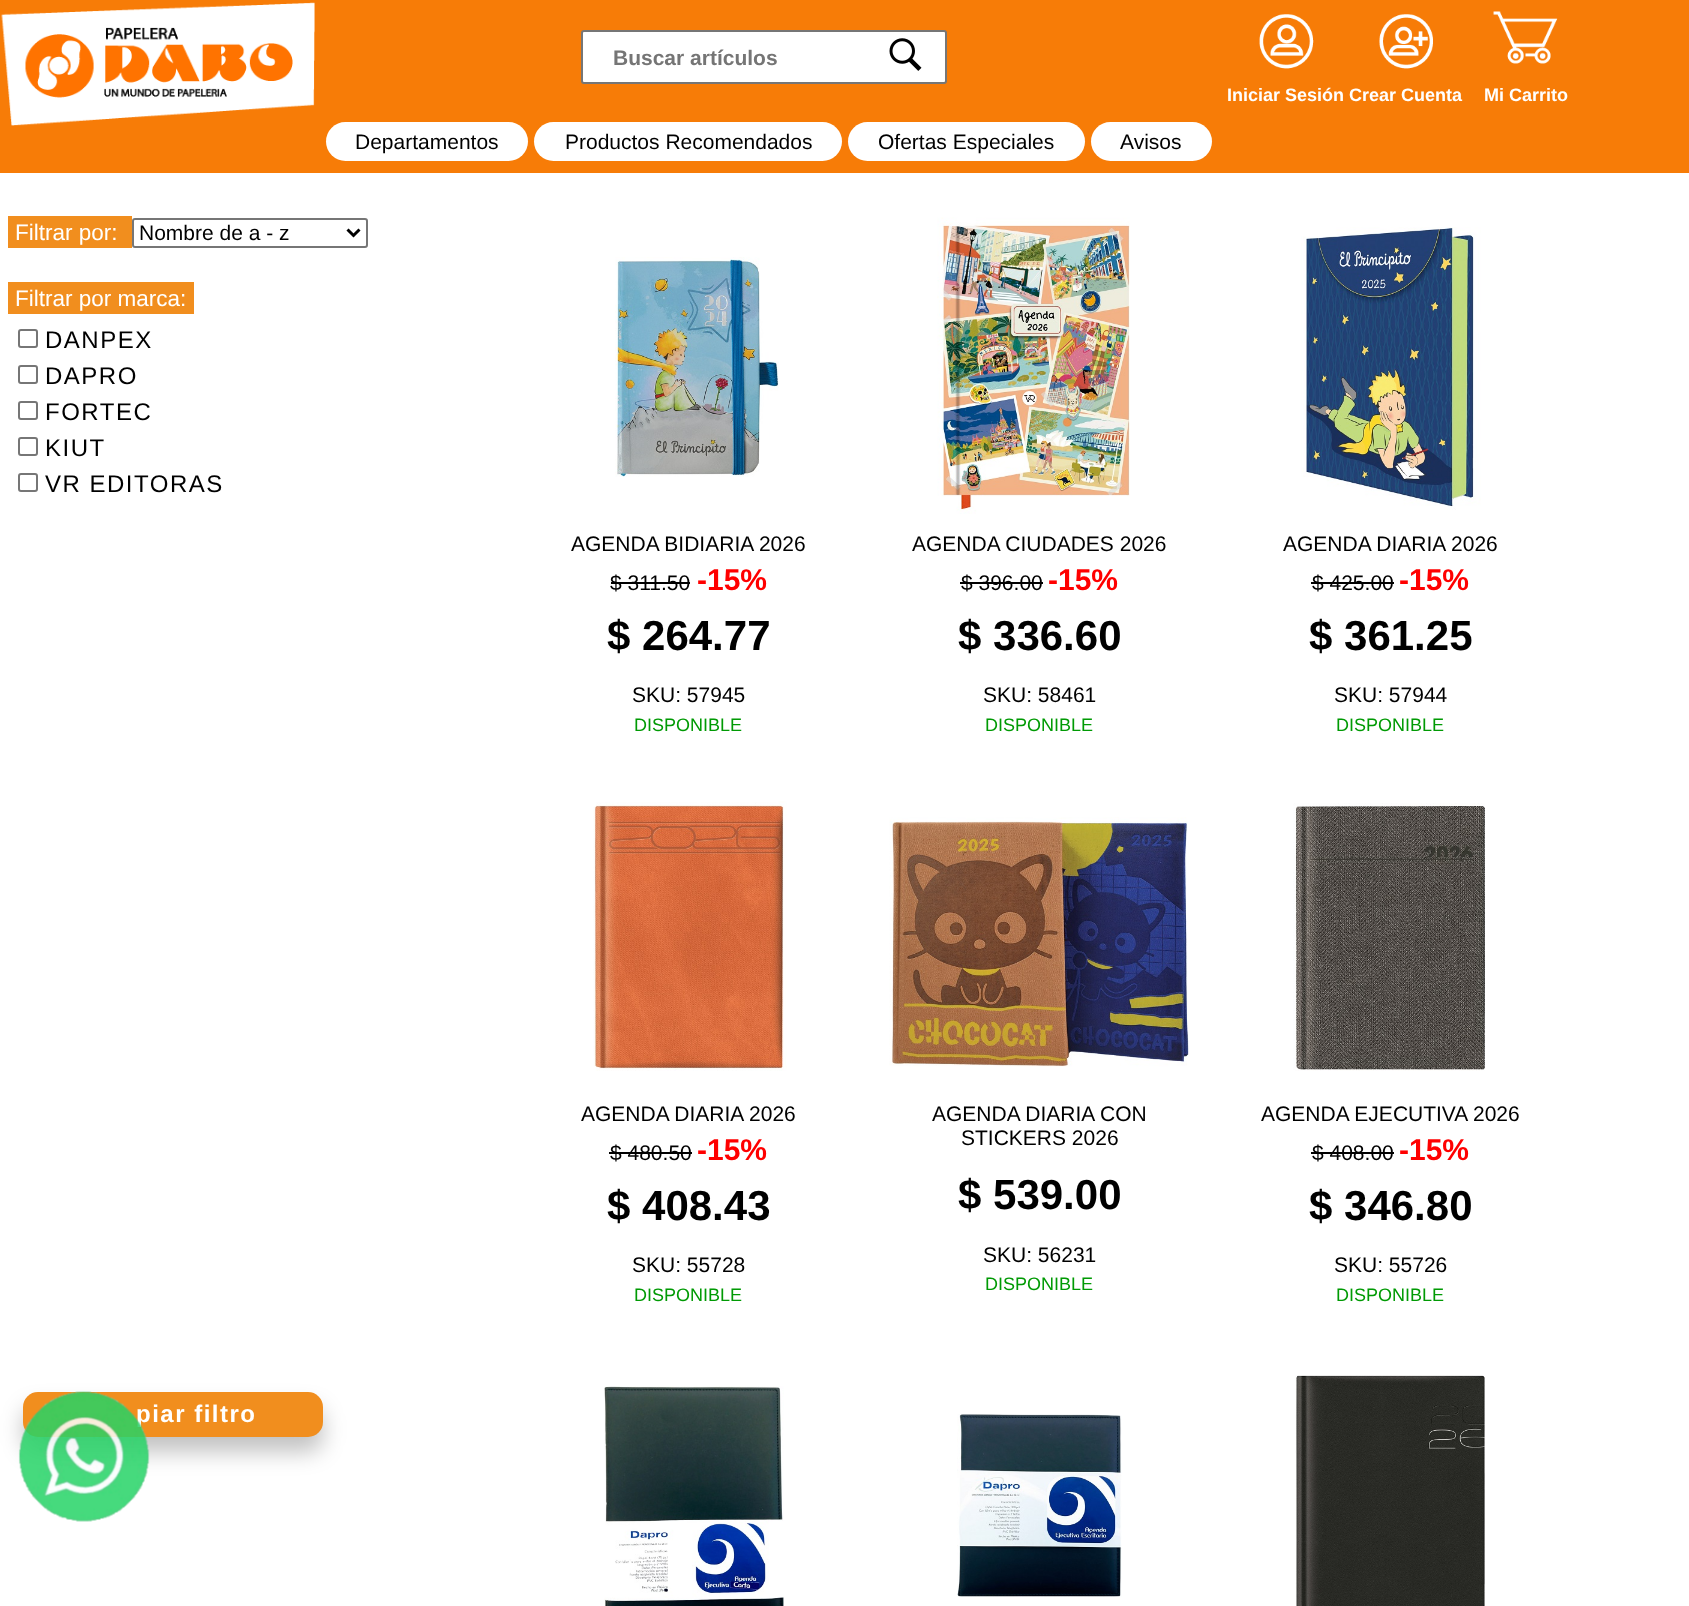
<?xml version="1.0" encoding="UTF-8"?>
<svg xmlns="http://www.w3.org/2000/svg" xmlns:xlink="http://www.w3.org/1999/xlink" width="1689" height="1606">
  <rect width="100%" height="100%" fill="#ffffff" />
  <rect width="1689" height="173" fill="#f77c07" />
  <image x="1" y="2" width="314" height="124" xlink:href="image1.png" />
  <rect x="582" y="31" width="364" height="52" rx="2" fill="#ffffff" stroke="#767676" stroke-width="2" />
  <image x="889" y="38" width="33" height="33" xlink:href="image2.png" />
  <rect x="326" y="122" width="202" height="39" rx="19.5" fill="#ffffff" />
  <rect x="534" y="122" width="308" height="39" rx="19.5" fill="#ffffff" />
  <rect x="848" y="122" width="237" height="39" rx="19.5" fill="#ffffff" />
  <rect x="1091" y="122" width="121" height="39" rx="19.5" fill="#ffffff" />
  <image x="1379" y="14" width="54" height="55" xlink:href="image3.png" />
  <image x="1259" y="14" width="55" height="55" xlink:href="image4.png" />
  <image x="1493" y="11" width="65" height="53" xlink:href="image5.png" />
  <rect x="8" y="216" width="124" height="32" fill="#f18e1e" />
  <rect x="133" y="219" width="234" height="28" rx="2" fill="none" stroke="#767676" stroke-width="2" />
  <path d="M 347.5 229.5 l 6 6 l 6 -6" fill="none" stroke="#000000" stroke-width="3" />
  <rect x="8" y="282" width="186" height="32" fill="#f18e1e" />
  <rect x="19" y="330" width="18" height="17" rx="2" fill="none" stroke="#767676" stroke-width="2" />
  <rect x="19" y="366" width="18" height="17" rx="2" fill="none" stroke="#767676" stroke-width="2" />
  <rect x="19" y="402" width="18" height="17" rx="2" fill="none" stroke="#767676" stroke-width="2" />
  <rect x="19" y="438" width="18" height="17" rx="2" fill="none" stroke="#767676" stroke-width="2" />
  <rect x="19" y="474" width="18" height="17" rx="2" fill="none" stroke="#767676" stroke-width="2" />
  <rect x="23" y="1407" width="300" height="45" rx="15" fill="#000000" fill-opacity="0.24" filter="blur(11px)" />
  <rect x="23" y="1392" width="300" height="45" rx="15" fill="#f18e1e" />
  <image x="615" y="257" width="164" height="220" xlink:href="image6.png" />
  <rect x="611" y="582" width="79" height="2" fill="#000000" />
  <image x="937" y="217" width="193" height="297" xlink:href="image7.png" />
  <rect x="960" y="582" width="83" height="2" fill="#000000" />
  <image x="1301" y="227" width="180" height="283" xlink:href="image8.png" />
  <rect x="1311" y="582" width="83" height="2" fill="#000000" />
  <image x="593" y="801" width="194" height="270" xlink:href="image9.png" />
  <rect x="609" y="1152" width="83" height="2" fill="#000000" />
  <image x="889" y="817" width="301" height="250" xlink:href="image10.png" />
  <image x="1293" y="803" width="192" height="268" xlink:href="image11.png" />
  <rect x="1311" y="1152" width="83" height="2" fill="#000000" />
  <image x="604" y="1386" width="180" height="220" xlink:href="image12.png" />
  <image x="957" y="1414" width="165" height="183" xlink:href="image13.png" />
  <image x="1295" y="1375" width="190" height="231" xlink:href="image14.png" />
  <text x="613" y="65" style="font-family: Liberation Sans; font-size: 21px; font-weight: bold; fill: #757575">Buscar artículos</text>
  <text x="355" y="149" style="font-family: Liberation Sans; font-size: 21px; fill: #000000">Departamentos</text>
  <text x="565" y="149" style="font-family: Liberation Sans; font-size: 21px; fill: #000000">Productos Recomendados</text>
  <text x="878" y="149" style="font-family: Liberation Sans; font-size: 21px; fill: #000000">Ofertas Especiales</text>
  <text x="1120" y="149" style="font-family: Liberation Sans; font-size: 21px; fill: #000000">Avisos</text>
  <text x="1227" y="101" style="font-family: Liberation Sans; font-size: 18px; font-weight: bold; fill: #ffffff">Iniciar Sesión Crear Cuenta</text>
  <text x="1484" y="101" style="font-family: Liberation Sans; font-size: 18px; font-weight: bold; fill: #ffffff">Mi Carrito</text>
  <text x="15" y="240" style="font-family: Liberation Sans; font-size: 22.5px; fill: #ffffff">Filtrar por:</text>
  <text x="139" y="240" style="font-family: Liberation Sans; font-size: 21px; fill: #000000">Nombre de a - z</text>
  <text x="15" y="306" style="font-family: Liberation Sans; font-size: 22.5px; fill: #ffffff">Filtrar por marca:</text>
  <text x="45" y="348" style="font-family: Liberation Sans; font-size: 24px; letter-spacing: 1.5px; fill: #000000">DANPEX</text>
  <text x="45" y="384" style="font-family: Liberation Sans; font-size: 24px; letter-spacing: 1.5px; fill: #000000">DAPRO</text>
  <text x="45" y="420" style="font-family: Liberation Sans; font-size: 24px; letter-spacing: 1.5px; fill: #000000">FORTEC</text>
  <text x="45" y="456" style="font-family: Liberation Sans; font-size: 24px; letter-spacing: 1.5px; fill: #000000">KIUT</text>
  <text x="45" y="492" style="font-family: Liberation Sans; font-size: 24px; letter-spacing: 1.5px; fill: #000000">VR EDITORAS</text>
  <text x="136" y="1422" style="font-family: Liberation Sans; font-size: 24px; font-weight: bold; letter-spacing: 1.5px; fill: #ffffff">piar filtro</text>
  <text x="571" y="551" style="font-family: Liberation Sans; font-size: 21px; fill: #000000">AGENDA BIDIARIA 2026</text>
  <text x="610" y="590" style="font-family: Liberation Sans; font-size: 21px; fill: #000000">$ 311.50</text>
  <text x="697" y="590" style="font-family: Liberation Sans; font-size: 30px; font-weight: bold; fill: #ff0000">-15%</text>
  <text x="607" y="650" style="font-family: Liberation Sans; font-size: 42px; font-weight: bold; fill: #000000">$ 264.77</text>
  <text x="632" y="702" style="font-family: Liberation Sans; font-size: 21px; fill: #000000">SKU: 57945</text>
  <text x="634" y="731" style="font-family: Liberation Sans; font-size: 18px; fill: #009a04">DISPONIBLE</text>
  <text x="912" y="551" style="font-family: Liberation Sans; font-size: 21px; fill: #000000">AGENDA CIUDADES 2026</text>
  <text x="961" y="590" style="font-family: Liberation Sans; font-size: 21px; fill: #000000">$ 396.00</text>
  <text x="1048" y="590" style="font-family: Liberation Sans; font-size: 30px; font-weight: bold; fill: #ff0000">-15%</text>
  <text x="958" y="650" style="font-family: Liberation Sans; font-size: 42px; font-weight: bold; fill: #000000">$ 336.60</text>
  <text x="983" y="702" style="font-family: Liberation Sans; font-size: 21px; fill: #000000">SKU: 58461</text>
  <text x="985" y="731" style="font-family: Liberation Sans; font-size: 18px; fill: #009a04">DISPONIBLE</text>
  <text x="1283" y="551" style="font-family: Liberation Sans; font-size: 21px; fill: #000000">AGENDA DIARIA 2026</text>
  <text x="1312" y="590" style="font-family: Liberation Sans; font-size: 21px; fill: #000000">$ 425.00</text>
  <text x="1399" y="590" style="font-family: Liberation Sans; font-size: 30px; font-weight: bold; fill: #ff0000">-15%</text>
  <text x="1309" y="650" style="font-family: Liberation Sans; font-size: 42px; font-weight: bold; fill: #000000">$ 361.25</text>
  <text x="1334" y="702" style="font-family: Liberation Sans; font-size: 21px; fill: #000000">SKU: 57944</text>
  <text x="1336" y="731" style="font-family: Liberation Sans; font-size: 18px; fill: #009a04">DISPONIBLE</text>
  <text x="581" y="1121" style="font-family: Liberation Sans; font-size: 21px; fill: #000000">AGENDA DIARIA 2026</text>
  <text x="610" y="1160" style="font-family: Liberation Sans; font-size: 21px; fill: #000000">$ 480.50</text>
  <text x="697" y="1160" style="font-family: Liberation Sans; font-size: 30px; font-weight: bold; fill: #ff0000">-15%</text>
  <text x="607" y="1220" style="font-family: Liberation Sans; font-size: 42px; font-weight: bold; fill: #000000">$ 408.43</text>
  <text x="632" y="1272" style="font-family: Liberation Sans; font-size: 21px; fill: #000000">SKU: 55728</text>
  <text x="634" y="1301" style="font-family: Liberation Sans; font-size: 18px; fill: #009a04">DISPONIBLE</text>
  <text x="932" y="1121" style="font-family: Liberation Sans; font-size: 21px; fill: #000000">AGENDA DIARIA CON</text>
  <text x="961" y="1145" style="font-family: Liberation Sans; font-size: 21px; fill: #000000">STICKERS 2026</text>
  <text x="958" y="1209" style="font-family: Liberation Sans; font-size: 42px; font-weight: bold; fill: #000000">$ 539.00</text>
  <text x="983" y="1262" style="font-family: Liberation Sans; font-size: 21px; fill: #000000">SKU: 56231</text>
  <text x="985" y="1290" style="font-family: Liberation Sans; font-size: 18px; fill: #009a04">DISPONIBLE</text>
  <text x="1261" y="1121" style="font-family: Liberation Sans; font-size: 21px; fill: #000000">AGENDA EJECUTIVA 2026</text>
  <text x="1312" y="1160" style="font-family: Liberation Sans; font-size: 21px; fill: #000000">$ 408.00</text>
  <text x="1399" y="1160" style="font-family: Liberation Sans; font-size: 30px; font-weight: bold; fill: #ff0000">-15%</text>
  <text x="1309" y="1220" style="font-family: Liberation Sans; font-size: 42px; font-weight: bold; fill: #000000">$ 346.80</text>
  <text x="1334" y="1272" style="font-family: Liberation Sans; font-size: 21px; fill: #000000">SKU: 55726</text>
  <text x="1336" y="1301" style="font-family: Liberation Sans; font-size: 18px; fill: #009a04">DISPONIBLE</text>
  <image x="18" y="1391" width="132" height="131" xlink:href="image15.png" />
</svg>
